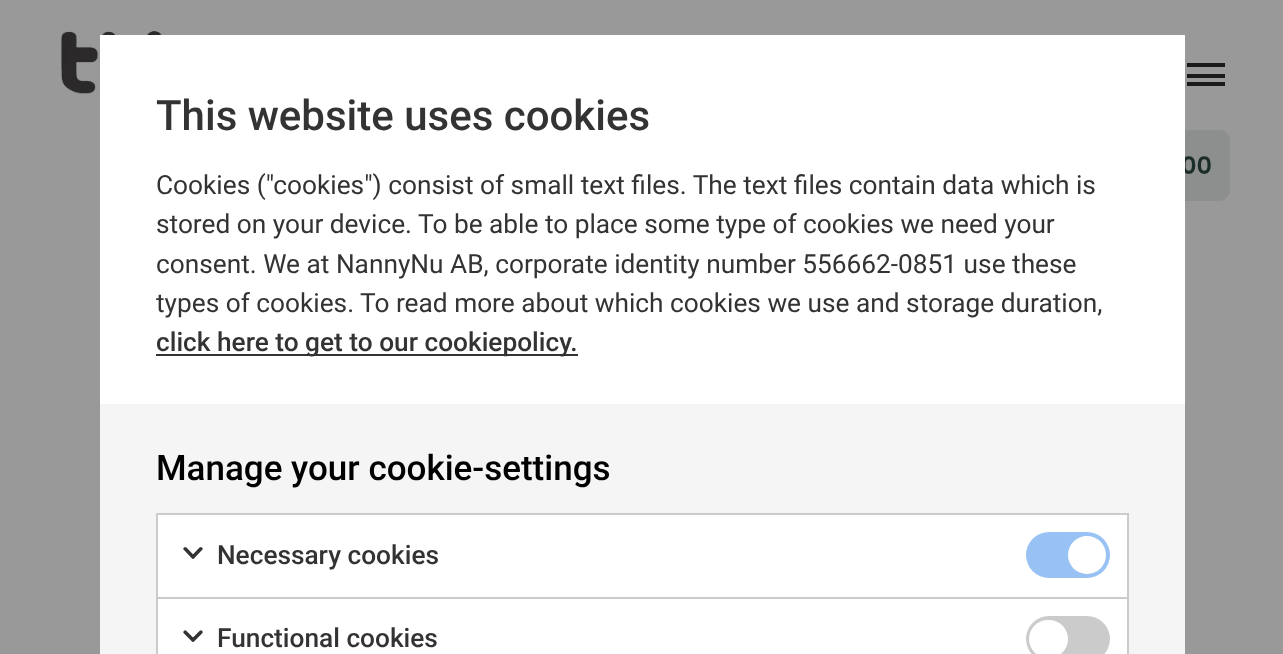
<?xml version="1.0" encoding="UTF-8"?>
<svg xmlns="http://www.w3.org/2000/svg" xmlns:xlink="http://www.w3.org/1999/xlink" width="1283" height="654">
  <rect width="100%" height="100%" fill="#999999" />
  <rect x="100" y="404" width="1085" height="250" fill="#f5f5f5" />
  <rect x="157" y="514" width="971" height="84" fill="#ffffff" stroke="#cbcbcb" stroke-width="2" />
  <path d="M 184 547.5 c 0.5 -0.5 1.5 -0.5 2.5 0 l 8.5 9 l -2.5 2.5 l -8.5 -9 c -1 -0.5 -1 -1.5 0 -2.5 z" fill="#333333" />
  <path d="M 202 547.5 c 1 1 1 2 0 2.5 l -8.5 9 l -2.5 -2.5 l 8.5 -9 c 1 -0.5 2 -0.5 2.5 0 z" fill="#333333" />
  <rect x="1026" y="532" width="84" height="46" rx="23" fill="#99c2f4" />
  <circle cx="1087" cy="555" r="19" fill="#ffffff" />
  <rect x="158" y="599" width="969" height="55" fill="#ffffff" />
  <rect x="1127" y="599" width="2" height="55" fill="#cbcbcb" />
  <rect x="156" y="599" width="2" height="55" fill="#cbcbcb" />
  <path d="M 184 631 c 0.5 -1 1.5 -1 2.5 0 l 8.5 8.5 l -2.5 2.5 l -8.5 -8.5 c -1 -1 -1 -2 0 -2.5 z" fill="#333333" />
  <path d="M 202 631 c 1 0.5 1 1.5 0 2.5 l -8.5 8.5 l -2.5 -2.5 l 8.5 -8.5 c 1 -1 2 -1 2.5 0 z" fill="#333333" />
  <rect x="1026" y="616" width="84" height="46" rx="23" fill="#cbcbcb" />
  <rect x="1029" y="620" width="39" height="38" rx="19" fill="#ffffff" />
  <image x="61" y="30" width="108" height="71" xlink:href="image1.png" />
  <rect x="1187" y="74" width="38" height="4" fill="#1a1a1a" />
  <rect x="1187" y="63" width="38" height="4" fill="#1a1a1a" />
  <rect x="1187" y="82" width="38" height="4" fill="#1a1a1a" />
  <rect x="852" y="130" width="378" height="71" rx="11" fill="#8d8e8e" />
  <text x="156" y="480" style="font-family: Roboto; font-size: 35px; font-weight: 500; fill: #000000">Manage your cookie-settings</text>
  <text x="217" y="564" style="font-family: Roboto; font-size: 26.25px; font-weight: 500; fill: #333333">Necessary cookies</text>
  <text x="217" y="647" style="font-family: Roboto; font-size: 26.25px; font-weight: 500; fill: #333333">Functional cookies</text>
  <text x="1181" y="174" style="font-family: Poppins; font-size: 24px; font-weight: 600; fill: #1a2d28">00</text>
  <rect x="100" y="35" width="1085" height="369" fill="#ffffff" />
  <rect x="156" y="354" width="422" height="2" fill="#333333" />
  <text x="156" y="351" style="font-family: Roboto; font-size: 26.25px; font-weight: 500; fill: #333333">click here to get to our cookiepolicy.</text>
  <text x="156" y="312" style="font-family: Roboto; font-size: 26.25px; fill: #333333">types of cookies. To read more about which cookies we use and storage duration,</text>
  <text x="156" y="273" style="font-family: Roboto; font-size: 26.25px; fill: #333333">consent. We at NannyNu AB, corporate identity number 556662-0851 use these</text>
  <text x="156" y="233" style="font-family: Roboto; font-size: 26.25px; fill: #333333">stored on your device. To be able to place some type of cookies we need your</text>
  <text x="156" y="194" style="font-family: Roboto; font-size: 26.25px; fill: #333333">Cookies ("cookies") consist of small text files. The text files contain data which is</text>
  <text x="156" y="130" style="font-family: Roboto; font-size: 42px; font-weight: 500; fill: #333333">This website uses cookies</text>
</svg>
